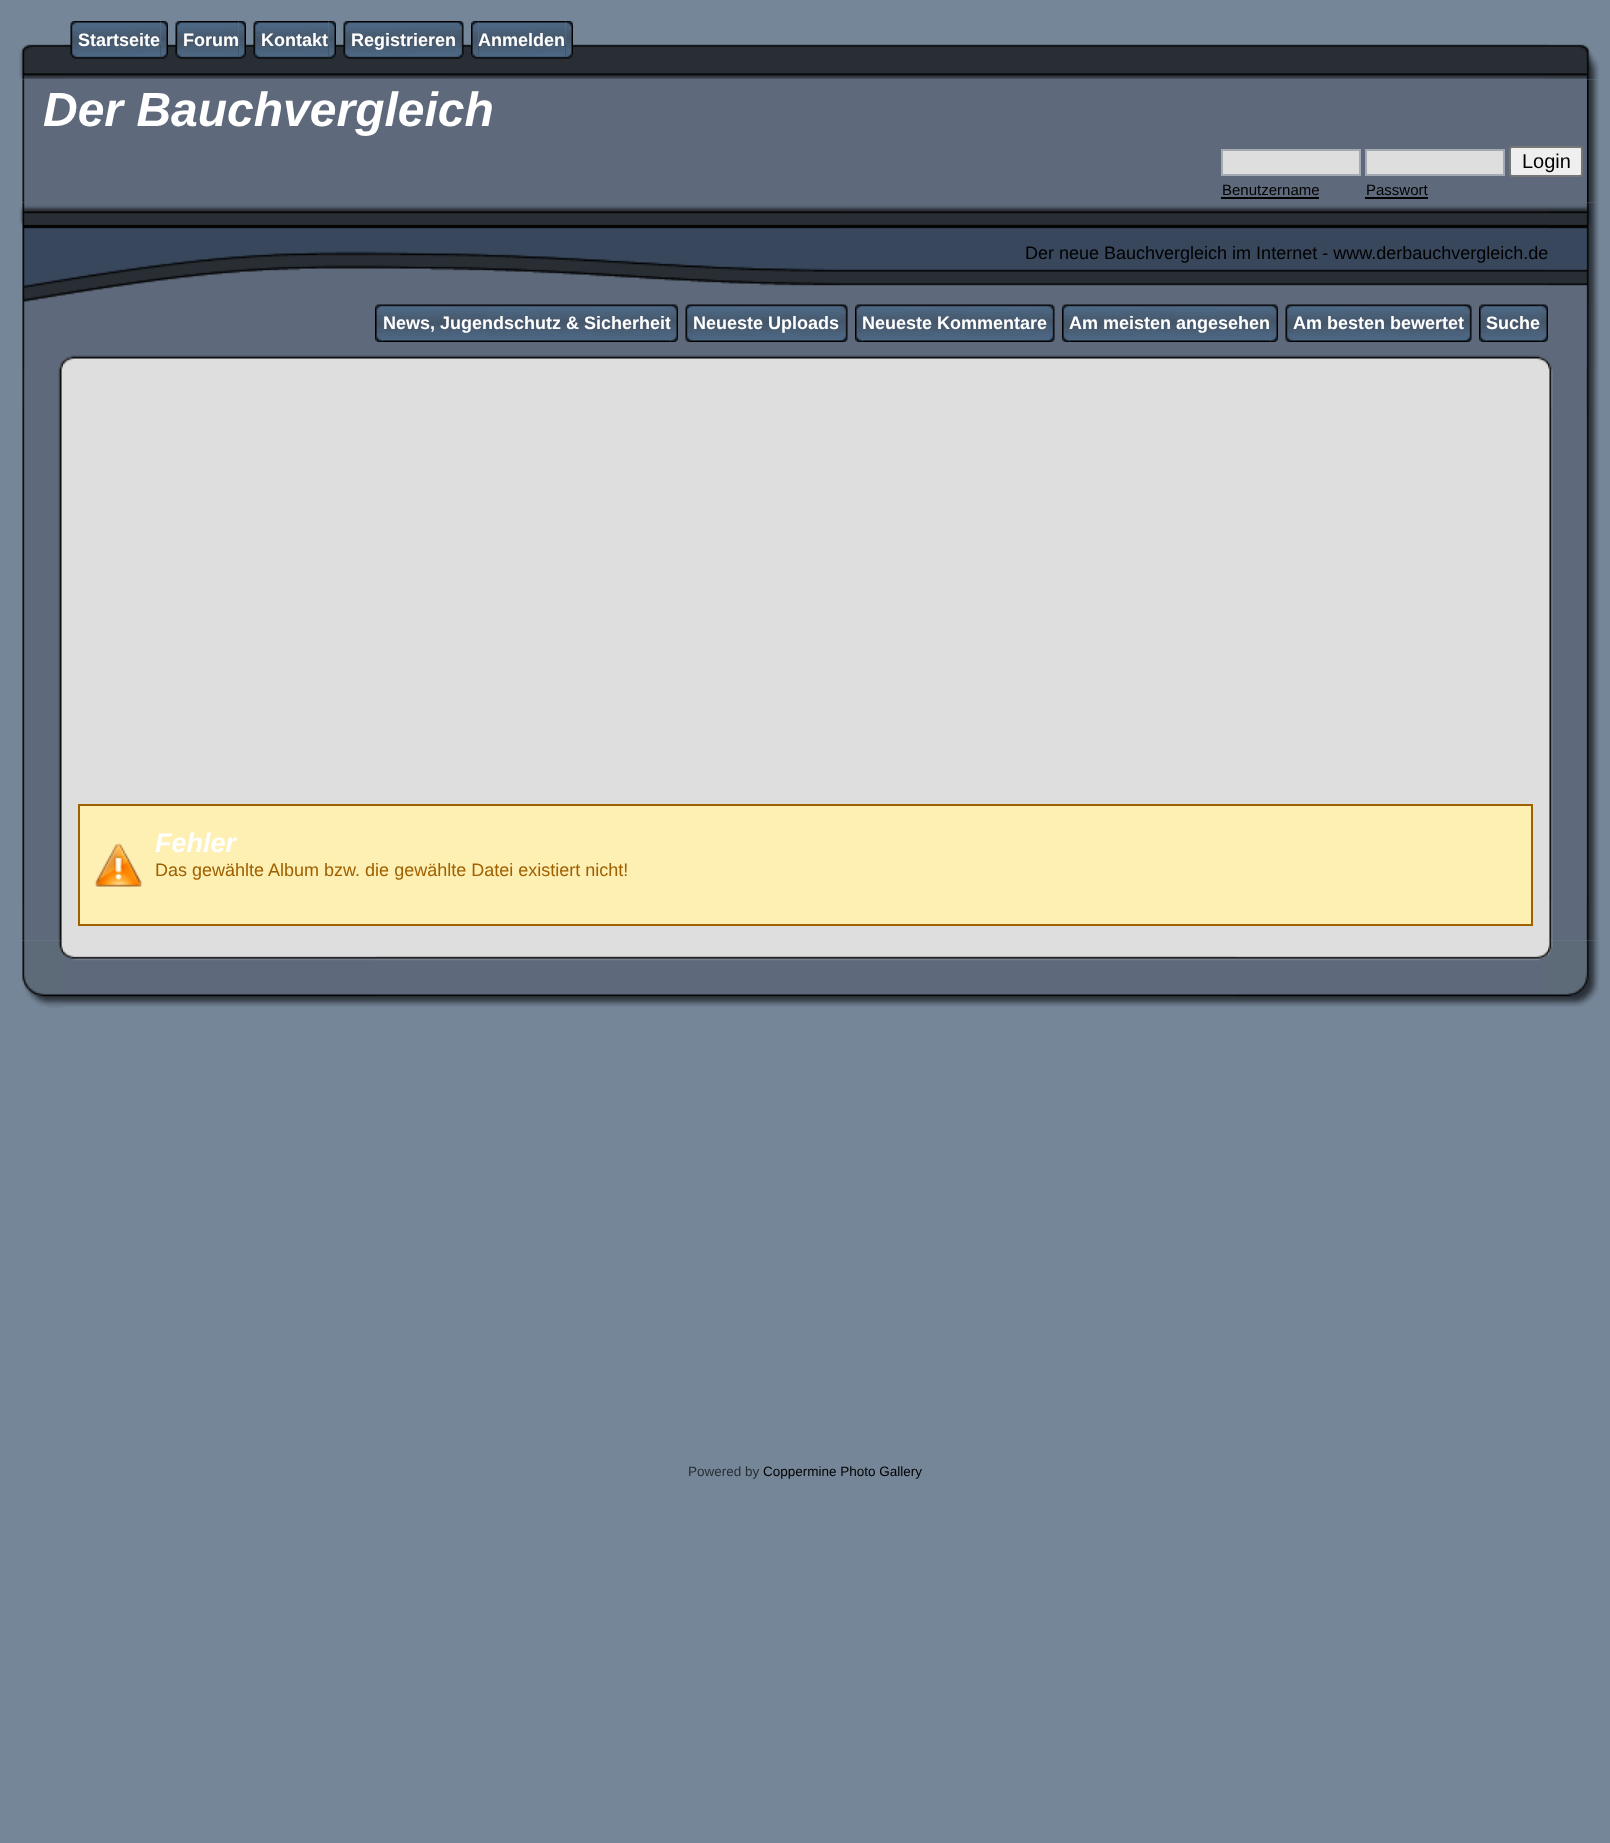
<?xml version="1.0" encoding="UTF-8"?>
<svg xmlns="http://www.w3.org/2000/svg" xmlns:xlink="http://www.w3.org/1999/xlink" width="1610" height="1843">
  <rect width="100%" height="100%" fill="#758698" />
  <image x="63" y="44" width="1485" height="35" xlink:href="image1.png" />
  <image x="70" y="21" width="8" height="38" xlink:href="image2.png" />
  <image x="78" y="21" width="83" height="38" xlink:href="image3.png" />
  <image x="160" y="21" width="8" height="38" xlink:href="image4.png" />
  <image x="175" y="21" width="8" height="38" xlink:href="image2.png" />
  <image x="183" y="21" width="56" height="38" xlink:href="image5.png" />
  <image x="238" y="21" width="8" height="38" xlink:href="image6.png" />
  <image x="253" y="21" width="8" height="38" xlink:href="image2.png" />
  <image x="261" y="21" width="68" height="38" xlink:href="image7.png" />
  <image x="328" y="21" width="8" height="38" xlink:href="image8.png" />
  <image x="343" y="21" width="8" height="38" xlink:href="image2.png" />
  <image x="351" y="21" width="105" height="38" xlink:href="image9.png" />
  <image x="456" y="21" width="8" height="38" xlink:href="image10.png" />
  <image x="478" y="21" width="88" height="38" xlink:href="image12.png" />
  <image x="471" y="21" width="8" height="38" xlink:href="image11.png" />
  <image x="565" y="21" width="8" height="38" xlink:href="image13.png" />
  <image x="19" y="44" width="44" height="36" xlink:href="image14.png" />
  <image x="1548" y="44" width="51" height="36" xlink:href="image15.png" />
  <image x="22" y="79" width="5" height="124" xlink:href="image16.png" />
  <rect x="27" y="79" width="1560" height="124" fill="#5e697b" />
  <rect x="1222" y="150" width="138" height="25" fill="#dedede" stroke="#a3aab4" stroke-width="2" />
  <rect x="1366" y="150" width="138" height="25" fill="#dedede" stroke="#a3aab4" stroke-width="2" />
  <rect x="1510" y="147" width="72" height="29" rx="2" fill="#efefef" stroke="#767676" stroke-width="2" />
  <rect x="1221" y="197" width="98" height="2" fill="#000000" />
  <rect x="1365" y="197" width="63" height="2" fill="#000000" />
  <image x="1587" y="79" width="12" height="124" xlink:href="image17.png" />
  <image x="19" y="202" width="821" height="101" xlink:href="image18.png" />
  <image x="840" y="203" width="708" height="100" xlink:href="image19.png" />
  <image x="1548" y="202" width="51" height="101" xlink:href="image20.png" />
  <image x="22" y="303" width="41" height="39" xlink:href="image21.png" />
  <rect x="63" y="303" width="1485" height="39" fill="#5e697b" />
  <image x="382" y="304" width="289" height="38" xlink:href="image23.png" />
  <image x="375" y="304" width="8" height="38" xlink:href="image22.png" />
  <image x="685" y="304" width="8" height="38" xlink:href="image25.png" />
  <image x="693" y="304" width="147" height="38" xlink:href="image26.png" />
  <image x="840" y="304" width="8" height="38" xlink:href="image27.png" />
  <image x="862" y="304" width="185" height="38" xlink:href="image29.png" />
  <image x="855" y="304" width="8" height="38" xlink:href="image28.png" />
  <image x="1047" y="304" width="8" height="38" xlink:href="image30.png" />
  <image x="1069" y="304" width="202" height="38" xlink:href="image31.png" />
  <image x="1062" y="304" width="8" height="38" xlink:href="image22.png" />
  <image x="1270" y="304" width="8" height="38" xlink:href="image32.png" />
  <image x="1285" y="304" width="8" height="38" xlink:href="image25.png" />
  <image x="1293" y="304" width="171" height="38" xlink:href="image33.png" />
  <image x="1464" y="304" width="8" height="38" xlink:href="image30.png" />
  <image x="1486" y="304" width="55" height="38" xlink:href="image35.png" />
  <image x="1479" y="304" width="8" height="38" xlink:href="image34.png" />
  <image x="1540" y="304" width="8" height="38" xlink:href="image36.png" />
  <image x="1548" y="303" width="51" height="39" xlink:href="image37.png" />
  <image x="22" y="342" width="41" height="27" xlink:href="image38.png" />
  <image x="63" y="342" width="21" height="27" xlink:href="image39.png" />
  <image x="84" y="342" width="1443" height="27" xlink:href="image40.png" />
  <image x="1527" y="342" width="21" height="27" xlink:href="image41.png" />
  <image x="1548" y="342" width="51" height="27" xlink:href="image42.png" />
  <image x="22" y="369" width="41" height="572" xlink:href="image43.png" />
  <rect x="23" y="410" width="1" height="491" fill="#0b0d0f" />
  <rect x="63" y="369" width="1485" height="572" fill="#dedede" />
  <rect x="80" y="806" width="1451" height="118" fill="#feefb3" />
  <image x="94" y="843" width="49" height="44" xlink:href="image44.png" />
  <rect x="79" y="805" width="1453" height="120" fill="none" stroke="#9f6000" stroke-width="2" />
  <image x="1548" y="369" width="51" height="572" xlink:href="image45.png" />
  <image x="1550" y="409" width="37" height="492" xlink:href="image46.png" />
  <image x="22" y="940" width="41" height="68" xlink:href="image47.png" />
  <image x="63" y="941" width="312" height="66" xlink:href="image48.png" />
  <image x="375" y="941" width="861" height="66" xlink:href="image49.png" />
  <image x="1236" y="941" width="312" height="66" xlink:href="image50.png" />
  <image x="1548" y="940" width="51" height="67" xlink:href="image51.png" />
  <text x="78" y="46" style="font-family: Liberation Sans; font-size: 18px; font-weight: bold; fill: #ffffff">Startseite</text>
  <text x="183" y="46" style="font-family: Liberation Sans; font-size: 18px; font-weight: bold; fill: #ffffff">Forum</text>
  <text x="261" y="46" style="font-family: Liberation Sans; font-size: 18px; font-weight: bold; fill: #ffffff">Kontakt</text>
  <text x="351" y="46" style="font-family: Liberation Sans; font-size: 18px; font-weight: bold; fill: #ffffff">Registrieren</text>
  <text x="478" y="46" style="font-family: Liberation Sans; font-size: 18px; font-weight: bold; fill: #ffffff">Anmelden</text>
  <text x="43" y="126" style="font-family: Liberation Sans; font-size: 48px; font-weight: bold; font-style: italic; fill: #ffffff">Der Bauchvergleich</text>
  <text x="1522" y="168" style="font-family: Liberation Sans; font-size: 20px; fill: #000000">Login</text>
  <text x="1222" y="195" style="font-family: Liberation Sans; font-size: 15px; fill: #000000">Benutzername</text>
  <text x="1366" y="195" style="font-family: Liberation Sans; font-size: 15px; fill: #000000">Passwort</text>
  <text x="1025" y="259" style="font-family: Liberation Sans; font-size: 18px; fill: #000000">Der neue Bauchvergleich im Internet - www.derbauchvergleich.de</text>
  <text x="383" y="329" style="font-family: Liberation Sans; font-size: 18px; font-weight: bold; fill: #ffffff">News, Jugendschutz &amp; Sicherheit</text>
  <image x="670" y="304" width="8" height="38" xlink:href="image24.png" />
  <text x="693" y="329" style="font-family: Liberation Sans; font-size: 18px; font-weight: bold; fill: #ffffff">Neueste Uploads</text>
  <text x="862" y="329" style="font-family: Liberation Sans; font-size: 18px; font-weight: bold; fill: #ffffff">Neueste Kommentare</text>
  <text x="1069" y="329" style="font-family: Liberation Sans; font-size: 18px; font-weight: bold; fill: #ffffff">Am meisten angesehen</text>
  <text x="1293" y="329" style="font-family: Liberation Sans; font-size: 18px; font-weight: bold; fill: #ffffff">Am besten bewertet</text>
  <text x="1486" y="329" style="font-family: Liberation Sans; font-size: 18px; font-weight: bold; fill: #ffffff">Suche</text>
  <text x="155" y="852" style="font-family: Liberation Sans; font-size: 27px; font-weight: bold; font-style: italic; fill: #ffffff">Fehler</text>
  <text x="155" y="876" style="font-family: Liberation Sans; font-size: 18px; fill: #9f6000">Das gewählte Album bzw. die gewählte Datei existiert nicht!</text>
  <text x="688" y="1476" style="font-family: Liberation Sans; font-size: 13.5px; fill: #292e34">Powered by</text>
  <text x="763" y="1476" style="font-family: Liberation Sans; font-size: 13.5px; fill: #000000">Coppermine Photo Gallery</text>
</svg>
